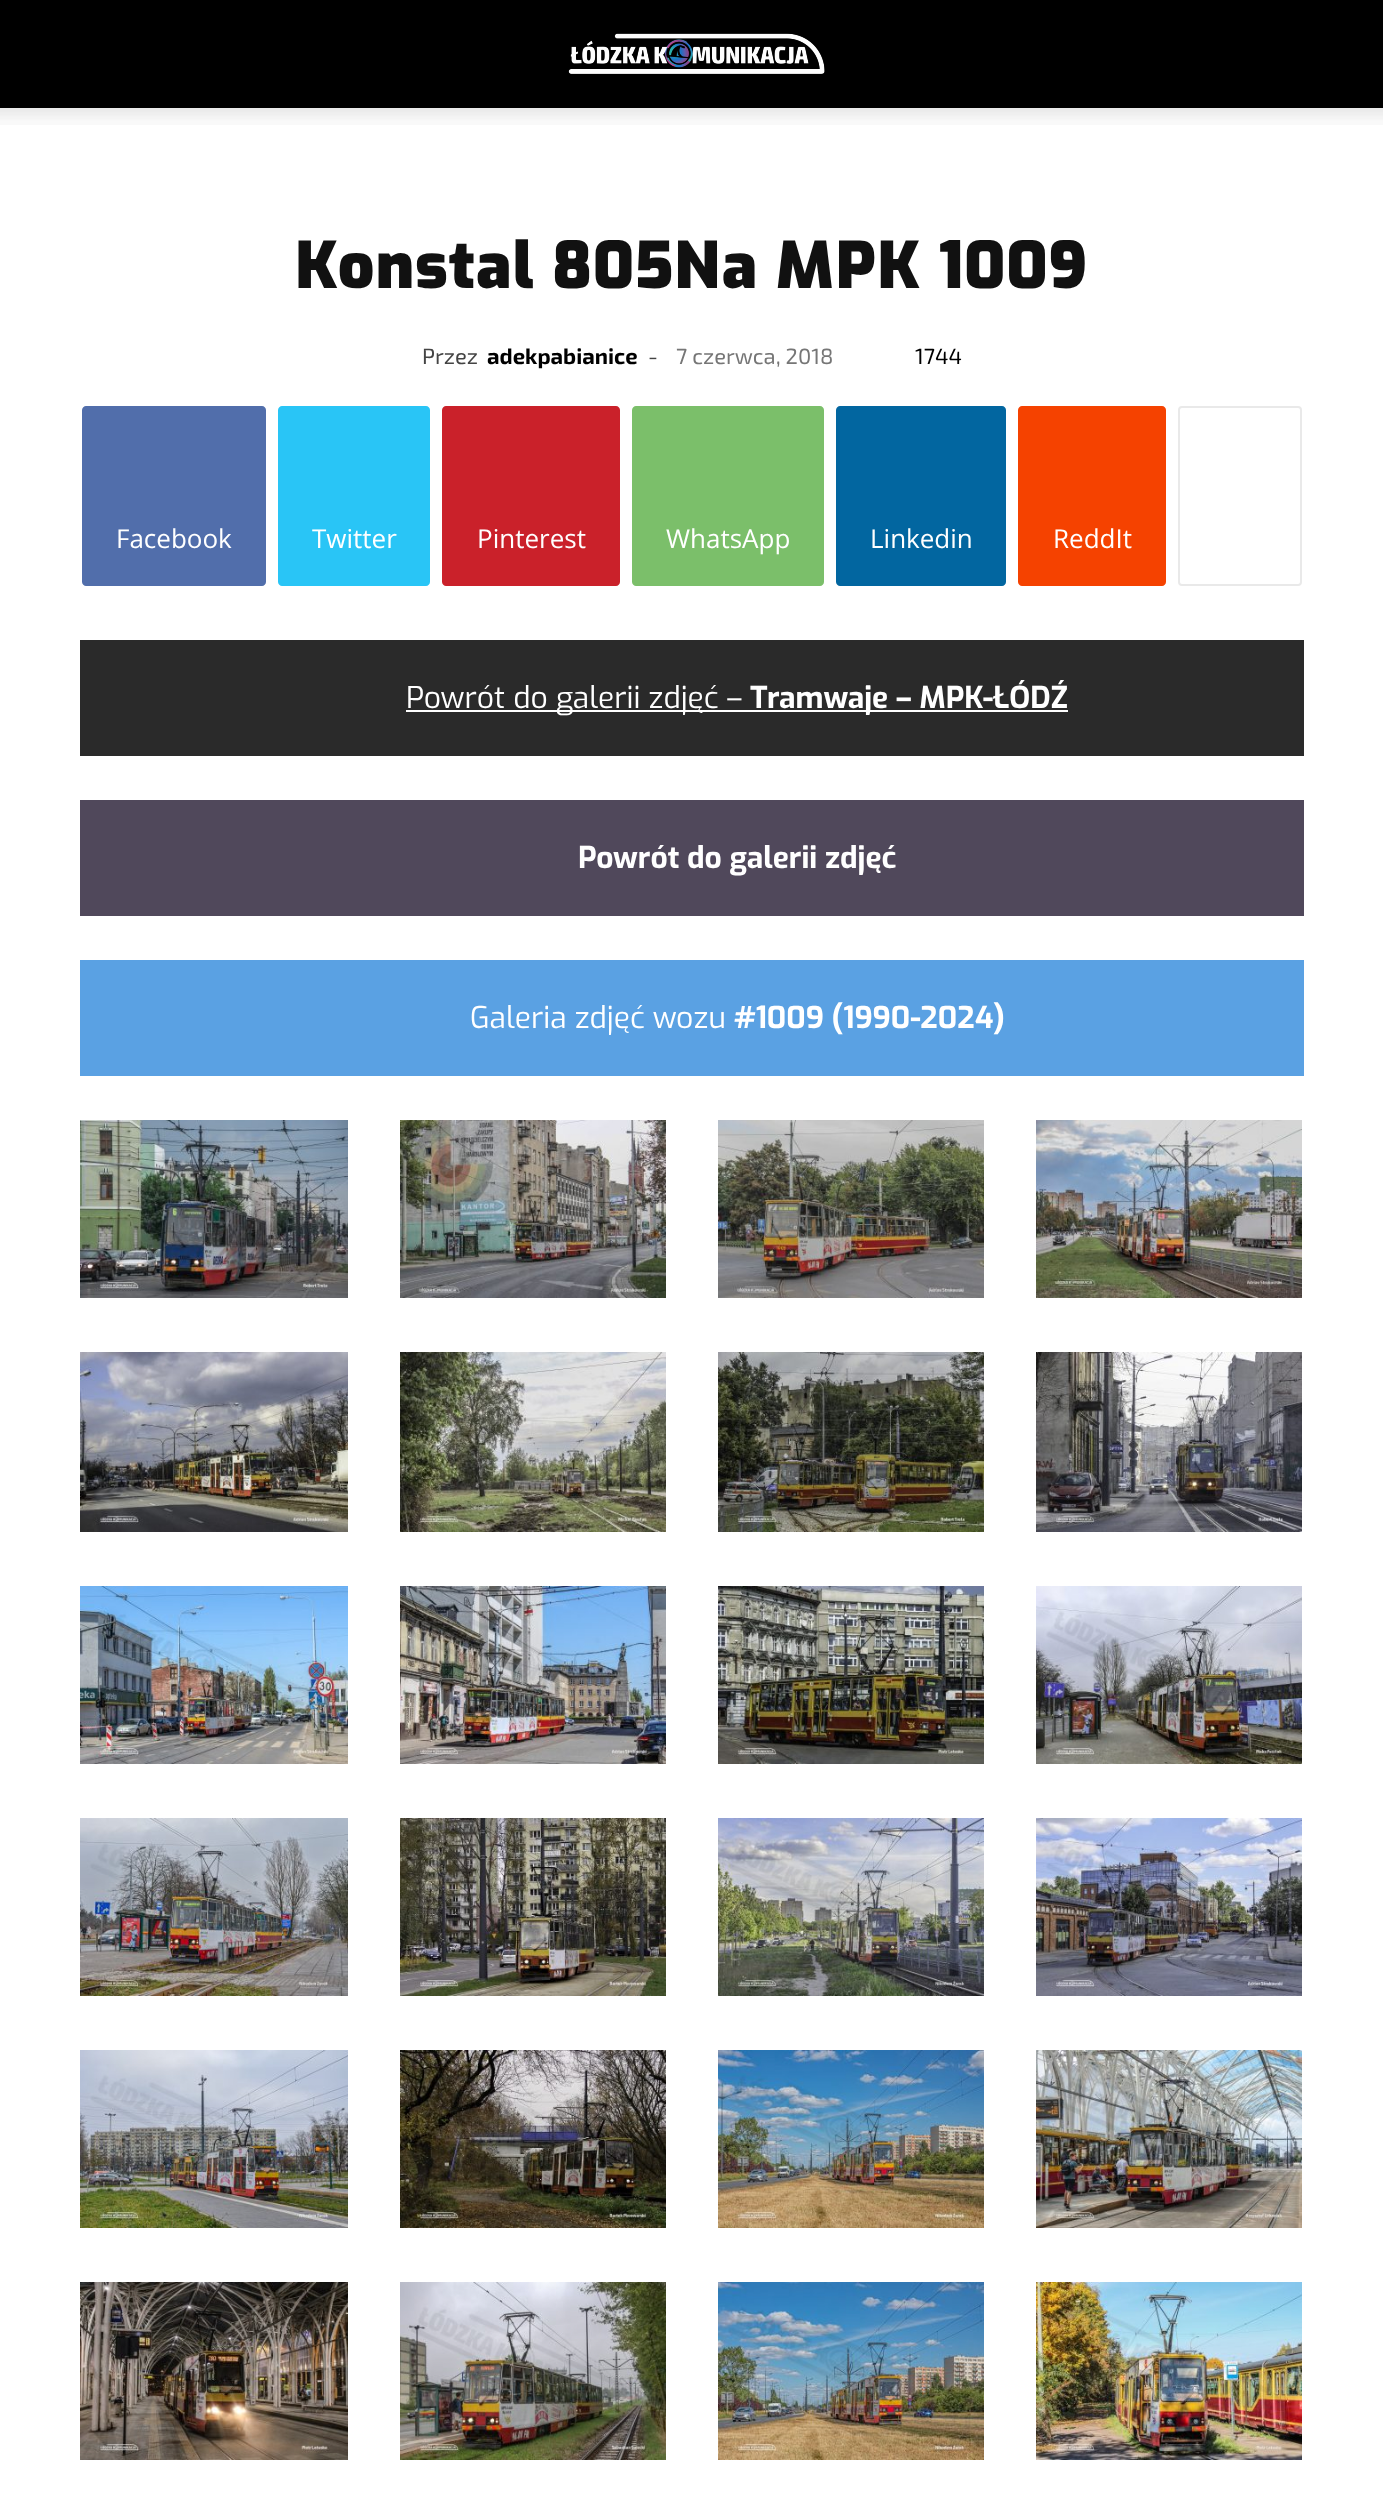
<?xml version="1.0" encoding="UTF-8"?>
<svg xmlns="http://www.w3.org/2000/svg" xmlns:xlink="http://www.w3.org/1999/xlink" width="1383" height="2510">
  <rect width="100%" height="100%" fill="#ffffff" />
  <rect width="1383" height="108" fill="#000000" />
  <image x="568" y="33" width="257" height="41" xlink:href="image1.png" />
  <image x="0" y="108" width="1383" height="17" xlink:href="image2.png" />
  <path d="M 86 406 h 176 c 2 0 4 2 4 4 v 116 h -184 v -116 c 0 -2 2 -4 4 -4 z" fill="#516eab" />
  <path d="M 82 526 h 184 v 56 c 0 2 -2 4 -4 4 h -176 c -2 0 -4 -2 -4 -4 z" fill="#516eab" />
  <path d="M 282 406 h 144 c 2 0 4 2 4 4 v 116 h -152 v -116 c 0 -2 2 -4 4 -4 z" fill="#29c5f6" />
  <path d="M 278 526 h 152 v 56 c 0 2 -2 4 -4 4 h -144 c -2 0 -4 -2 -4 -4 z" fill="#29c5f6" />
  <path d="M 446 406 h 170 c 2 0 4 2 4 4 v 116 h -178 v -116 c 0 -2 2 -4 4 -4 z" fill="#ca212a" />
  <path d="M 442 526 h 178 v 56 c 0 2 -2 4 -4 4 h -170 c -2 0 -4 -2 -4 -4 z" fill="#ca212a" />
  <path d="M 636 406 h 184 c 2 0 4 2 4 4 v 116 h -192 v -116 c 0 -2 2 -4 4 -4 z" fill="#7bbf6a" />
  <path d="M 632 526 h 192 v 56 c 0 2 -2 4 -4 4 h -184 c -2 0 -4 -2 -4 -4 z" fill="#7bbf6a" />
  <path d="M 840 406 h 162 c 2 0 4 2 4 4 v 116 h -170 v -116 c 0 -2 2 -4 4 -4 z" fill="#0266a0" />
  <path d="M 836 526 h 170 v 56 c 0 2 -2 4 -4 4 h -162 c -2 0 -4 -2 -4 -4 z" fill="#0266a0" />
  <path d="M 1022 406 h 140 c 2 0 4 2 4 4 v 116 h -148 v -116 c 0 -2 2 -4 4 -4 z" fill="#f54200" />
  <path d="M 1018 526 h 148 v 56 c 0 2 -2 4 -4 4 h -140 c -2 0 -4 -2 -4 -4 z" fill="#f54200" />
  <rect x="1179" y="407" width="122" height="178" rx="3" fill="none" stroke="#e9e9e9" stroke-width="2" />
  <rect x="80" y="640" width="1224" height="116" fill="#2a2a2a" />
  <rect x="406" y="710" width="662" height="2" fill="#ffffff" />
  <rect x="80" y="800" width="1224" height="116" fill="#50485b" />
  <rect x="80" y="960" width="1224" height="116" fill="#5aa1e3" />
  <image x="80" y="1120" width="268" height="178" xlink:href="image3.png" />
  <image x="400" y="1120" width="266" height="178" xlink:href="image4.png" />
  <image x="718" y="1120" width="266" height="178" xlink:href="image5.png" />
  <image x="1036" y="1120" width="266" height="178" xlink:href="image6.png" />
  <image x="80" y="1352" width="268" height="180" xlink:href="image7.png" />
  <image x="400" y="1352" width="266" height="180" xlink:href="image8.png" />
  <image x="718" y="1352" width="266" height="180" xlink:href="image9.png" />
  <image x="1036" y="1352" width="266" height="180" xlink:href="image10.png" />
  <image x="80" y="1586" width="268" height="178" xlink:href="image11.png" />
  <image x="400" y="1586" width="266" height="178" xlink:href="image12.png" />
  <image x="718" y="1586" width="266" height="178" xlink:href="image13.png" />
  <image x="1036" y="1586" width="266" height="178" xlink:href="image14.png" />
  <image x="80" y="1818" width="268" height="178" xlink:href="image15.png" />
  <image x="400" y="1818" width="266" height="178" xlink:href="image16.png" />
  <image x="718" y="1818" width="266" height="178" xlink:href="image17.png" />
  <image x="1036" y="1818" width="266" height="178" xlink:href="image18.png" />
  <image x="80" y="2050" width="268" height="178" xlink:href="image19.png" />
  <image x="400" y="2050" width="266" height="178" xlink:href="image20.png" />
  <image x="718" y="2050" width="266" height="178" xlink:href="image21.png" />
  <image x="1036" y="2050" width="266" height="178" xlink:href="image22.png" />
  <image x="80" y="2282" width="268" height="178" xlink:href="image23.png" />
  <image x="400" y="2282" width="266" height="178" xlink:href="image24.png" />
  <image x="718" y="2282" width="266" height="178" xlink:href="image25.png" />
  <image x="1036" y="2282" width="266" height="178" xlink:href="image26.png" />
  <text x="295" y="288" style="font-family: Exo; font-size: 64px; font-weight: 900; letter-spacing: 1.25px; fill: #111111">Konstal 805Na MPK 1009</text>
  <text x="422" y="364" style="font-family: 'Exo 2'; font-size: 22px; fill: #444444">Przez</text>
  <text x="487" y="364" style="font-family: 'Exo 2'; font-size: 22px; font-weight: bold; fill: #000000">adekpabianice</text>
  <text x="648" y="364" style="font-family: 'Exo 2'; font-size: 22px; fill: #444444">-</text>
  <text x="676" y="364" style="font-family: 'Exo 2'; font-size: 22px; fill: #767676">7 czerwca, 2018</text>
  <text x="915" y="364" style="font-family: 'Exo 2'; font-size: 22px; fill: #000000">1744</text>
  <text x="116" y="548" style="font-family: Open Sans; font-size: 26px; fill: #ffffff">Facebook</text>
  <text x="312" y="548" style="font-family: Open Sans; font-size: 26px; fill: #ffffff">Twitter</text>
  <text x="477" y="548" style="font-family: Open Sans; font-size: 26px; fill: #ffffff">Pinterest</text>
  <text x="666" y="548" style="font-family: Open Sans; font-size: 26px; fill: #ffffff">WhatsApp</text>
  <text x="870" y="548" style="font-family: Open Sans; font-size: 26px; fill: #ffffff">Linkedin</text>
  <text x="1053" y="548" style="font-family: Open Sans; font-size: 26px; fill: #ffffff">ReddIt</text>
  <text x="406" y="708" style="font-family: Exo; font-size: 30px; fill: #ffffff">Powrót do galerii zdjęć –</text>
  <text x="750" y="708" style="font-family: Exo; font-size: 30px; font-weight: bold; fill: #ffffff">Tramwaje – MPK-ŁÓDŹ</text>
  <text x="578" y="868" style="font-family: Exo; font-size: 30px; font-weight: bold; fill: #ffffff">Powrót do galerii zdjęć</text>
  <text x="470" y="1028" style="font-family: Exo; font-size: 30px; fill: #ffffff">Galeria zdjęć wozu</text>
  <text x="734" y="1028" style="font-family: Exo; font-size: 30px; font-weight: bold; fill: #ffffff">#1009 (1990-2024)</text>
</svg>
